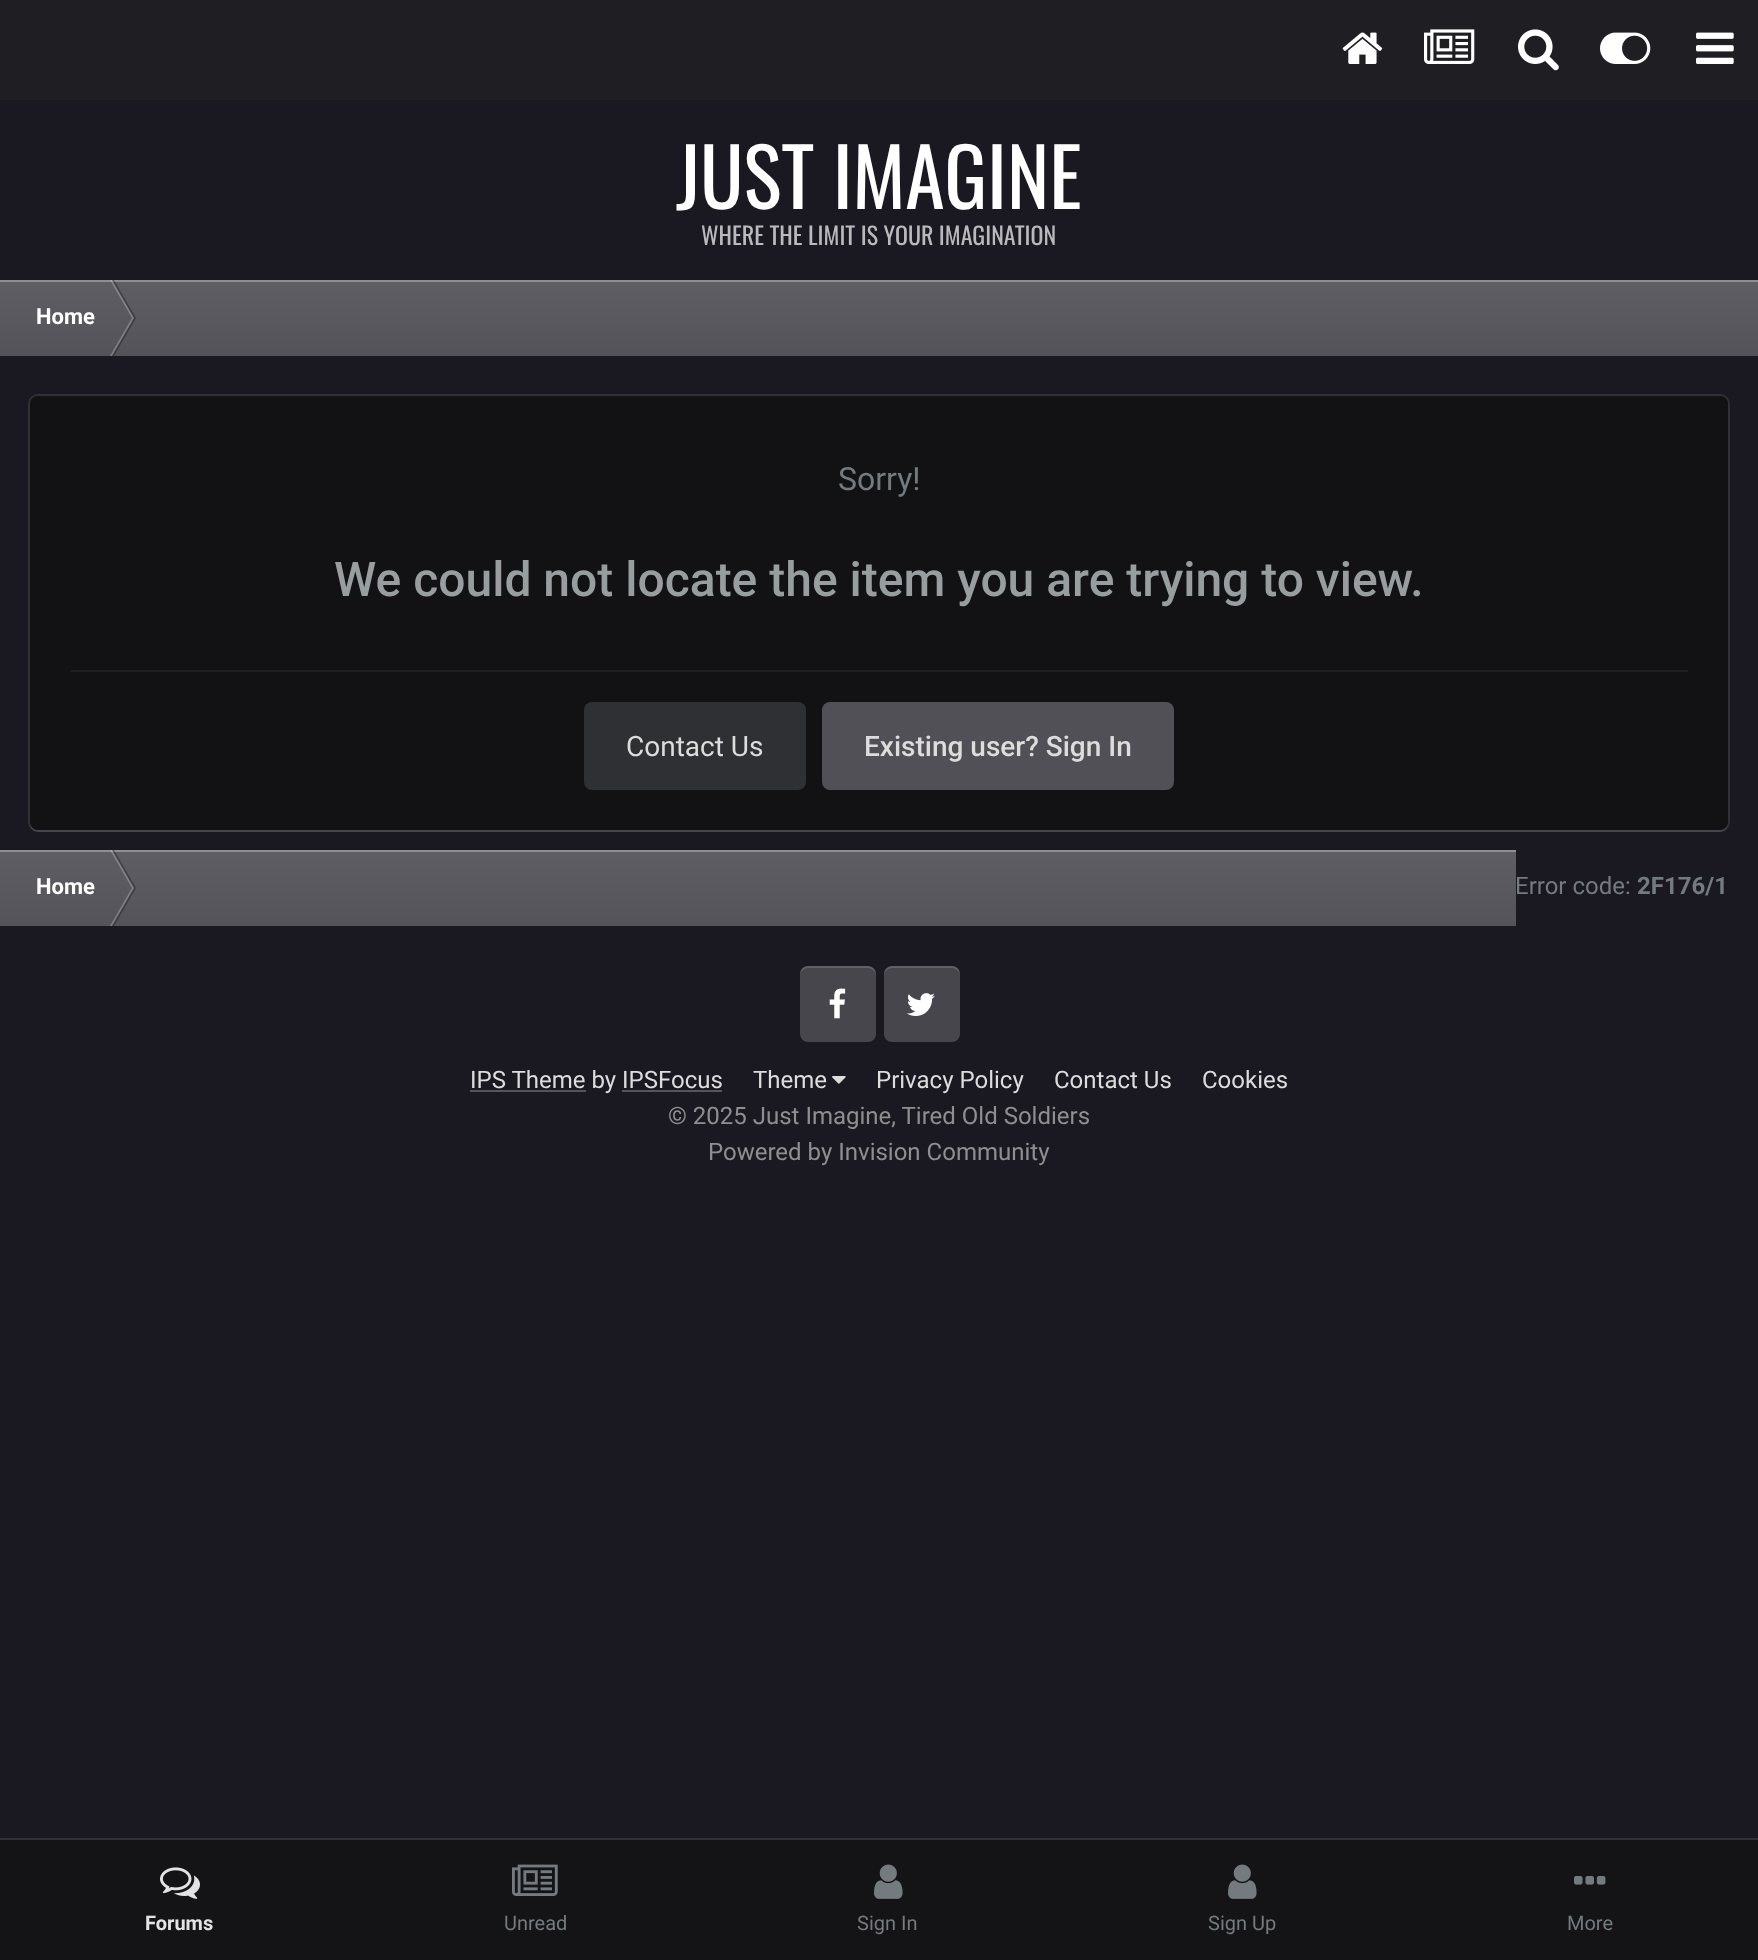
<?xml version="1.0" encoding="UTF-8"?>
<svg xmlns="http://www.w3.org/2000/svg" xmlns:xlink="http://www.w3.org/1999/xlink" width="1758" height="1960">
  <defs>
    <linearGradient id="g1" gradientUnits="userSpaceOnUse" x1="879" y1="280" x2="879" y2="356"><stop offset="0" stop-color="#5f5e64" /><stop offset="1" stop-color="#535359" /></linearGradient>
    <linearGradient id="g2" gradientUnits="userSpaceOnUse" x1="758" y1="850" x2="758" y2="926"><stop offset="0" stop-color="#5f5e64" /><stop offset="1" stop-color="#535359" /></linearGradient>
  </defs>
  <rect width="100%" height="100%" fill="#1a1921" />
  <rect width="1758" height="100" fill="#1f1e22" />
  <image x="1342" y="32" width="41" height="32" xlink:href="image1.png" />
  <image x="1424" y="29" width="51" height="35" xlink:href="image2.png" />
  <image x="1518" y="29" width="41" height="42" xlink:href="image3.png" />
  <image x="1600" y="32" width="51" height="32" xlink:href="image4.png" />
  <image x="1696" y="32" width="38" height="32" xlink:href="image5.png" />
  <rect y="282" width="1758" height="74" fill="url(#g1)" />
  <rect y="280" width="1758" height="2" fill="#8f8e93" />
  <path d="M 110 280 h 2 l 22 38 h -2 z" fill="#ffffff" fill-opacity="0.25" />
  <path d="M 112 280 h 2 l 22 38 h -2 z" fill="#000000" fill-opacity="0.3" />
  <path d="M 110 356 h 2 l 22 -38 h -2 z" fill="#ffffff" fill-opacity="0.25" />
  <path d="M 112 356 h 2 l 22 -38 h -2 z" fill="#000000" fill-opacity="0.3" />
  <path d="M 30 822 c 0 5 2 10 8 10 h 1682 c 6 0 8 -5 8 -10 c 0 4 -4 8 -8 8 h -1682 c -4 0 -8 -4 -8 -8 z" fill="#313037" />
  <rect x="29" y="395" width="1700" height="436" rx="9" fill="none" stroke="#ffffff" stroke-opacity="0.1" stroke-width="2" />
  <rect x="30" y="396" width="1698" height="434" rx="8" fill="#121213" fill-opacity="0.85" />
  <rect x="70" y="670" width="1618" height="2" fill="#1e1e20" />
  <rect x="584" y="702" width="222" height="88" rx="8" fill="#2f3033" />
  <rect x="822" y="702" width="352" height="88" rx="8" fill="#505056" />
  <rect y="852" width="1516" height="74" fill="url(#g2)" />
  <rect y="850" width="1516" height="2" fill="#8f8e93" />
  <path d="M 110 850 h 2 l 22 38 h -2 z" fill="#ffffff" fill-opacity="0.25" />
  <path d="M 112 850 h 2 l 22 38 h -2 z" fill="#000000" fill-opacity="0.3" />
  <path d="M 110 926 h 2 l 22 -38 h -2 z" fill="#ffffff" fill-opacity="0.25" />
  <path d="M 112 926 h 2 l 22 -38 h -2 z" fill="#000000" fill-opacity="0.3" />
  <rect x="800" y="966" width="76" height="76" rx="8" fill="#46464c" />
  <path d="M 808 968 c -4 0 -8 4 -8 8 c 0 -12 9 -10 18 -10 h 40 c 9 0 18 -2 18 10 c 0 -4 -4 -8 -8 -8 z" fill="#ffffff" fill-opacity="0.15" />
  <image x="829" y="988" width="17" height="31" xlink:href="image6.png" />
  <rect x="884" y="966" width="76" height="76" rx="8" fill="#46464c" />
  <path d="M 892 968 c -4 0 -8 4 -8 8 c 0 -12 9 -10 18 -10 h 40 c 9 0 18 -2 18 10 c 0 -4 -4 -8 -8 -8 z" fill="#ffffff" fill-opacity="0.15" />
  <image x="907" y="993" width="28" height="23" xlink:href="image7.png" />
  <rect x="470" y="1090" width="116" height="2" fill="#555459" />
  <image x="832" y="1076" width="14" height="8" xlink:href="image8.png" />
  <rect y="1838" width="1758" height="2" fill="#313037" />
  <rect y="1840" width="1758" height="120" fill="#141316" />
  <image x="160" y="1867" width="40" height="32" xlink:href="image9.png" />
  <image x="512" y="1864" width="46" height="32" xlink:href="image10.png" />
  <image x="874" y="1864" width="29" height="35" xlink:href="image11.png" />
  <image x="1228" y="1864" width="29" height="35" xlink:href="image11.png" />
  <image x="1574" y="1876" width="32" height="9" xlink:href="image12.png" />
  <text x="676" y="209" style="font-family: Oswald; font-size: 80px; fill: #ffffff">JUST IMAGINE</text>
  <text x="701" y="245" style="font-family: Oswald; font-size: 24px; fill: #bababc">WHERE THE LIMIT IS YOUR IMAGINATION</text>
  <text x="36" y="324" style="font-family: Roboto; font-size: 22px; font-weight: bold; fill: #ffffff">Home</text>
  <text x="838" y="490" style="font-family: Roboto; font-size: 32px; fill: #747b7f">Sorry!</text>
  <text x="334" y="596" style="font-family: Roboto; font-size: 48px; font-weight: 500; fill: #989da0">We could not locate the item you are trying to view.</text>
  <text x="626" y="756" style="font-family: Roboto; font-size: 28px; fill: #dddddd">Contact Us</text>
  <text x="864" y="756" style="font-family: Roboto; font-size: 28px; font-weight: 500; fill: #dddddd">Existing user? Sign In</text>
  <text x="1515" y="894" style="font-family: Roboto; font-size: 24px; fill: #747b7f">Error code:</text>
  <text x="1637" y="894" style="font-family: Roboto; font-size: 24px; font-weight: bold; fill: #747b7f">2F176/1</text>
  <text x="36" y="894" style="font-family: Roboto; font-size: 22px; font-weight: bold; fill: #ffffff">Home</text>
  <text x="470" y="1088" style="font-family: Roboto; font-size: 24px; fill: #dddddd">IPS Theme by IPSFocus</text>
  <rect x="622" y="1090" width="100" height="2" fill="#555459" />
  <text x="753" y="1088" style="font-family: Roboto; font-size: 24px; fill: #dddddd">Theme</text>
  <text x="876" y="1088" style="font-family: Roboto; font-size: 24px; fill: #dddddd">Privacy Policy</text>
  <text x="1054" y="1088" style="font-family: Roboto; font-size: 24px; fill: #dddddd">Contact Us</text>
  <text x="1202" y="1088" style="font-family: Roboto; font-size: 24px; fill: #dddddd">Cookies</text>
  <text x="668" y="1124" style="font-family: Roboto; font-size: 24px; fill: #8f8f92">© 2025 Just Imagine, Tired Old Soldiers</text>
  <text x="708" y="1160" style="font-family: Roboto; font-size: 24px; fill: #8f8f92">Powered by Invision Community</text>
  <text x="145" y="1930" style="font-family: Roboto; font-size: 20px; font-weight: bold; fill: #e3e3e3">Forums</text>
  <text x="504" y="1930" style="font-family: Roboto; font-size: 20px; fill: #747b7f">Unread</text>
  <text x="857" y="1930" style="font-family: Roboto; font-size: 20px; fill: #747b7f">Sign In</text>
  <text x="1208" y="1930" style="font-family: Roboto; font-size: 20px; fill: #747b7f">Sign Up</text>
  <text x="1567" y="1930" style="font-family: Roboto; font-size: 20px; fill: #747b7f">More</text>
</svg>
